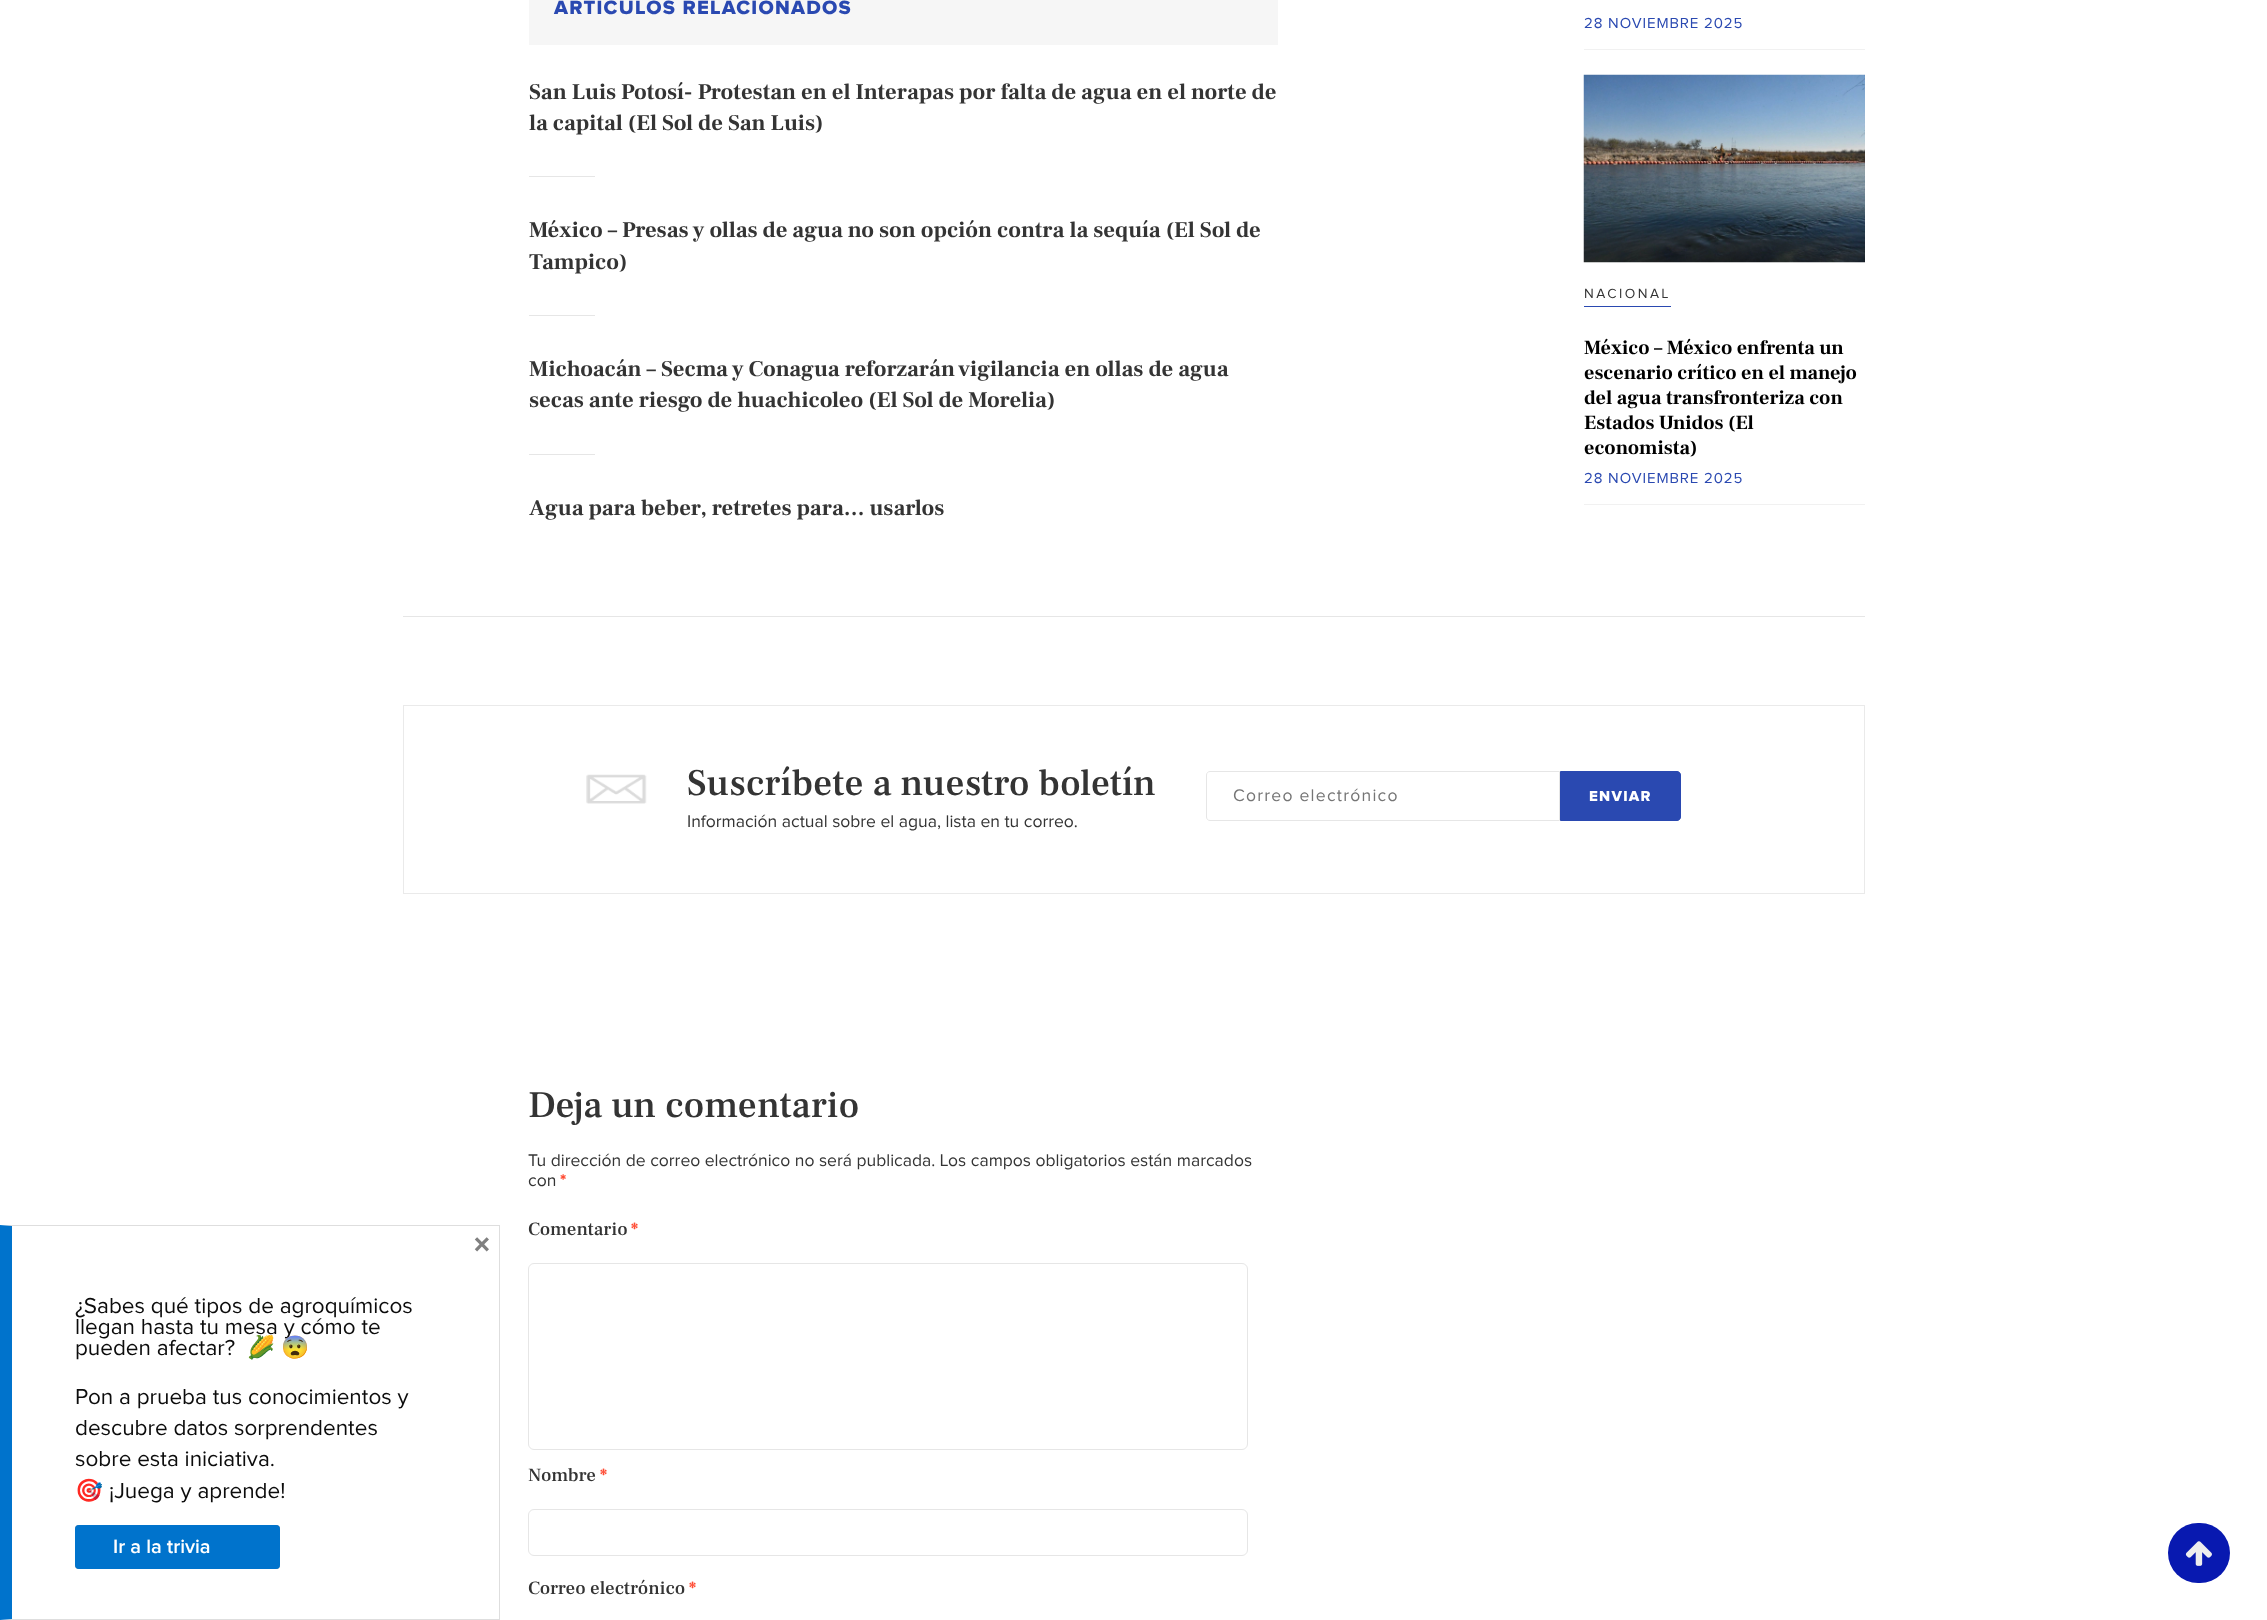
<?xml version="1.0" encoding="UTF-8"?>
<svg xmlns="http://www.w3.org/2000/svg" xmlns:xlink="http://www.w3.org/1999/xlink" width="2267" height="1620">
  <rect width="100%" height="100%" fill="#ffffff" />
  <path d="M 0 1225 h 500 l -1 1 h -487 z" fill="#dedede" />
  <rect x="499" y="1225" width="1" height="395" fill="#dedede" />
  <path d="M 500 1620 h -500 l 12 -1 h 487 z" fill="#dedede" />
  <path d="M 0 1620 v -395 l 12 1 v 393 z" fill="#0073cc" />
  <rect x="75" y="1525" width="205" height="44" rx="4" fill="#000000" fill-opacity="0.4" filter="blur(0.5px)" />
  <rect x="76.5" y="1526.5" width="202" height="41" rx="2.5" fill="#0073cc" stroke="#0073cc" stroke-width="3" />
  <rect x="403" y="616" width="1462" height="1" fill="#e6e6e6" />
  <rect x="529" width="749" height="45" fill="#f6f6f6" />
  <rect x="529" y="176" width="66" height="1" fill="#e6e6e6" />
  <rect x="529" y="315" width="66" height="1" fill="#e6e6e6" />
  <rect x="529" y="454" width="66" height="1" fill="#e6e6e6" />
  <rect x="1584" y="49" width="281" height="1" fill="#f1f1f1" />
  <rect x="1584" y="504" width="281" height="1" fill="#f1f1f1" />
  <image x="1583" y="74" width="282" height="189" xlink:href="image1.png" />
  <rect x="1584" y="306" width="87" height="1" fill="#2a49b1" />
  <rect x="403.5" y="705.5" width="1461" height="188" fill="none" stroke="#eaeaea" />
  <image x="586" y="774" width="61" height="30" xlink:href="image2.png" />
  <path d="M 1210 771.5 h 349.5 v 49 h -349.5 c -2 0 -3.5 -1.5 -3.5 -3.5 v -42 c 0 -2 1.5 -3.5 3.5 -3.5 z" fill="none" stroke="#e6e6e6" />
  <path d="M 1560.5 771.5 h 116.5 c 2 0 3.5 1.5 3.5 3.5 v 42 c 0 2 -1.5 3.5 -3.5 3.5 h -116.5 z" fill="#2a49b1" stroke="#2a49b1" />
  <rect x="528.5" y="1263.5" width="719" height="186" rx="5.5" fill="none" stroke="#e6e6e6" />
  <rect x="528.5" y="1509.5" width="719" height="46" rx="5.5" fill="none" stroke="#e6e6e6" />
  <rect x="2168" y="1523" width="62" height="60" rx="30" fill="#0819b0" />
  <image x="2185" y="1541" width="27" height="25" xlink:href="image3.png" />
  <text x="473" y="1256" style="font-family: Proxima Nova; font-size: 35px; font-weight: 800; fill: #808080">×</text>
  <text x="75" y="1313" style="font-family: Proxima Nova; font-size: 22.5px; fill: #0c0c0c">¿Sabes qué tipos de agroquímicos</text>
  <text x="75" y="1334" style="font-family: Proxima Nova; font-size: 22.5px; fill: #0c0c0c">llegan hasta tu mesa y cómo te</text>
  <text x="75" y="1355" style="font-family: Proxima Nova; font-size: 22.5px; fill: #0c0c0c">pueden afectar?</text>
  <text x="247" y="1355" style="font-family: Noto Color Emoji; font-size: 22.5px; fill: #0c0c0c">🌽</text>
  <text x="281" y="1355" style="font-family: Noto Color Emoji; font-size: 22.5px; fill: #0c0c0c">😨</text>
  <text x="75" y="1404" style="font-family: Proxima Nova; font-size: 22.5px; fill: #0c0c0c">Pon a prueba tus conocimientos y</text>
  <text x="75" y="1435" style="font-family: Proxima Nova; font-size: 22.5px; fill: #0c0c0c">descubre datos sorprendentes</text>
  <text x="75" y="1466" style="font-family: Proxima Nova; font-size: 22.5px; fill: #0c0c0c">sobre esta iniciativa.</text>
  <text x="75" y="1498" style="font-family: Noto Color Emoji; font-size: 22.5px; fill: #0c0c0c">🎯</text>
  <text x="109" y="1498" style="font-family: Proxima Nova; font-size: 22.5px; fill: #0c0c0c">¡Juega y aprende!</text>
  <text x="113" y="1553" style="font-family: Proxima Nova; font-size: 20px; font-weight: 600; fill: #ffffff">Ir a la trivia</text>
  <text x="554" y="14" style="font-family: Proxima Nova; font-size: 20px; font-weight: 800; letter-spacing: 1.25px; fill: #2a49b1">ARTÍCULOS RELACIONADOS</text>
  <text x="529" y="99" style="font-family: Frank Ruhl Libre; font-size: 22.5px; font-weight: bold; fill: #343434">San Luis Potosí- Protestan en el Interapas por falta de agua en el norte de</text>
  <text x="529" y="130" style="font-family: Frank Ruhl Libre; font-size: 22.5px; font-weight: bold; fill: #343434">la capital (El Sol de San Luis)</text>
  <text x="529" y="237" style="font-family: Frank Ruhl Libre; font-size: 22.5px; font-weight: bold; fill: #343434">México – Presas y ollas de agua no son opción contra la sequía (El Sol de</text>
  <text x="529" y="269" style="font-family: Frank Ruhl Libre; font-size: 22.5px; font-weight: bold; fill: #343434">Tampico)</text>
  <text x="529" y="376" style="font-family: Frank Ruhl Libre; font-size: 22.5px; font-weight: bold; fill: #343434">Michoacán – Secma y Conagua reforzarán vigilancia en ollas de agua</text>
  <text x="529" y="407" style="font-family: Frank Ruhl Libre; font-size: 22.5px; font-weight: bold; fill: #343434">secas ante riesgo de huachicoleo (El Sol de Morelia)</text>
  <text x="529" y="515" style="font-family: Frank Ruhl Libre; font-size: 22.5px; font-weight: bold; fill: #343434">Agua para beber, retretes para… usarlos</text>
  <text x="1584" y="28" style="font-family: Proxima Nova; font-size: 15px; letter-spacing: 0.9px; fill: #2a49b1">28 NOVIEMBRE 2025</text>
  <text x="1584" y="298" style="font-family: Proxima Nova; font-size: 13.75px; letter-spacing: 2.5px; fill: #343434">NACIONAL</text>
  <text x="1584" y="354" style="font-family: Frank Ruhl Libre; font-size: 20px; font-weight: bold; fill: #000000">México – México enfrenta un</text>
  <text x="1584" y="379" style="font-family: Frank Ruhl Libre; font-size: 20px; font-weight: bold; fill: #000000">escenario crítico en el manejo</text>
  <text x="1584" y="404" style="font-family: Frank Ruhl Libre; font-size: 20px; font-weight: bold; fill: #000000">del agua transfronteriza con</text>
  <text x="1584" y="429" style="font-family: Frank Ruhl Libre; font-size: 20px; font-weight: bold; fill: #000000">Estados Unidos (El</text>
  <text x="1584" y="454" style="font-family: Frank Ruhl Libre; font-size: 20px; font-weight: bold; fill: #000000">economista)</text>
  <text x="1584" y="483" style="font-family: Proxima Nova; font-size: 15px; letter-spacing: 0.9px; fill: #2a49b1">28 NOVIEMBRE 2025</text>
  <text x="687" y="795" style="font-family: Frank Ruhl Libre; font-size: 37.5px; font-weight: 500; fill: #343434">Suscríbete a nuestro boletín</text>
  <text x="687" y="827" style="font-family: Proxima Nova; font-size: 17.5px; fill: #343434">Información actual sobre el agua, lista en tu correo.</text>
  <text x="1233" y="801" style="font-family: Proxima Nova; font-size: 17.5px; letter-spacing: 1.25px; fill: #757575">Correo electrónico</text>
  <text x="1589" y="801" style="font-family: Proxima Nova; font-size: 15px; font-weight: 800; letter-spacing: 1.25px; fill: #ffffff">ENVIAR</text>
  <text x="528" y="1117" style="font-family: Frank Ruhl Libre; font-size: 37.5px; font-weight: 500; fill: #343434">Deja un comentario</text>
  <text x="528" y="1166" style="font-family: Proxima Nova; font-size: 17.5px; fill: #343434">Tu dirección de correo electrónico no será publicada. Los campos obligatorios están marcados</text>
  <text x="528" y="1186" style="font-family: Proxima Nova; font-size: 17.5px; fill: #343434">con</text>
  <text x="560" y="1186" style="font-family: Proxima Nova; font-size: 17.5px; font-weight: 800; fill: #ff4b33">*</text>
  <text x="528" y="1235" style="font-family: Frank Ruhl Libre; font-size: 18.75px; font-weight: 500; fill: #343434">Comentario</text>
  <text x="631" y="1235" style="font-family: Frank Ruhl Libre; font-size: 18.75px; font-weight: bold; fill: #ff4b33">*</text>
  <text x="528" y="1481" style="font-family: Frank Ruhl Libre; font-size: 18.75px; font-weight: 500; fill: #343434">Nombre</text>
  <text x="600" y="1481" style="font-family: Frank Ruhl Libre; font-size: 18.75px; font-weight: bold; fill: #ff4b33">*</text>
  <text x="528" y="1594" style="font-family: Frank Ruhl Libre; font-size: 18.75px; font-weight: 500; fill: #343434">Correo electrónico</text>
  <text x="689" y="1594" style="font-family: Frank Ruhl Libre; font-size: 18.75px; font-weight: bold; fill: #ff4b33">*</text>
</svg>
